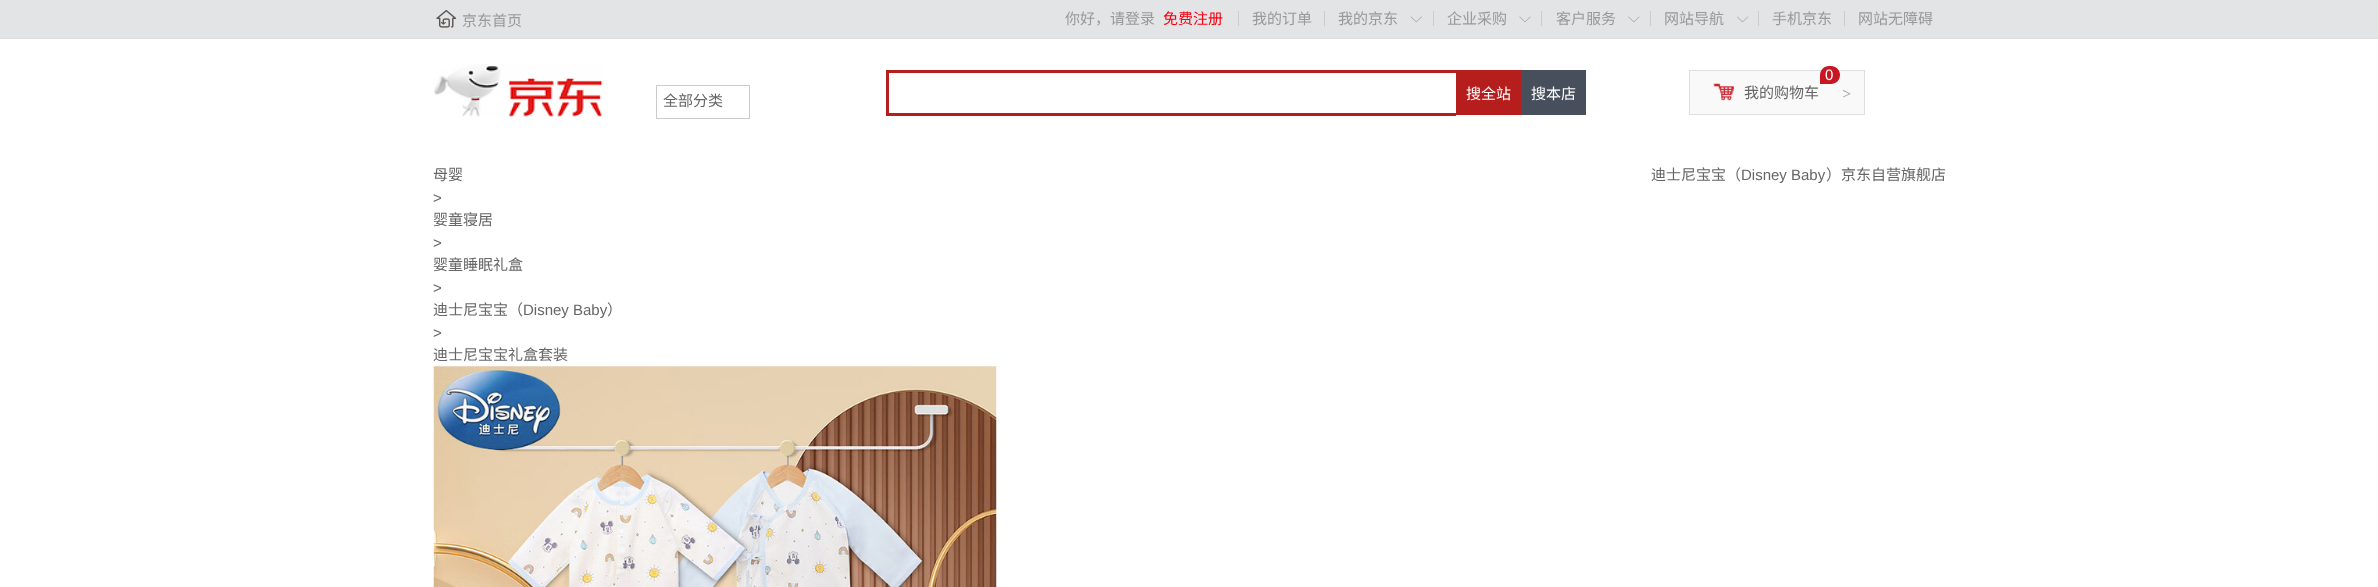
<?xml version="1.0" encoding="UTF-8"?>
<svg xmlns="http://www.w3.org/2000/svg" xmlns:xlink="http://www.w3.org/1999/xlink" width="2378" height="587">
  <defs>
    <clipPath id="clip1"><rect x="1843" y="85" width="8" height="16" /></clipPath>
  </defs>
  <rect width="100%" height="100%" fill="#ffffff" />
  <rect width="2378" height="38" fill="#e3e4e5" />
  <rect y="38" width="2378" height="1" fill="#dddddd" />
  <image x="436" y="10" width="21" height="18" xlink:href="image1.png" />
  <rect x="1238" y="11" width="1" height="15" fill="#cccccc" />
  <rect x="1324" y="11" width="1" height="15" fill="#cccccc" />
  <image x="1410" y="16" width="12" height="7" xlink:href="image2.png" />
  <rect x="1433" y="11" width="1" height="15" fill="#cccccc" />
  <image x="1519" y="16" width="12" height="6" xlink:href="image3.png" />
  <rect x="1541" y="11" width="1" height="15" fill="#cccccc" />
  <image x="1628" y="16" width="12" height="7" xlink:href="image4.png" />
  <rect x="1650" y="11" width="1" height="15" fill="#cccccc" />
  <image x="1737" y="16" width="11" height="7" xlink:href="image5.png" />
  <rect x="1758" y="11" width="1" height="15" fill="#cccccc" />
  <rect x="1844" y="11" width="1" height="15" fill="#cccccc" />
  <image x="433" y="64" width="170" height="53" xlink:href="image6.png" />
  <rect x="656.5" y="85.5" width="93" height="33" fill="none" stroke="#cccccc" />
  <rect x="886" y="70" width="570" height="3" fill="#b61d1d" />
  <rect x="886" y="113" width="570" height="3" fill="#b61d1d" />
  <rect x="886" y="70" width="3" height="45" fill="#b61d1d" />
  <rect x="1456" y="70" width="65" height="45" fill="#b61d1d" />
  <rect x="1521" y="70" width="65" height="45" fill="#474e5c" />
  <rect x="1689.5" y="70.5" width="175" height="44" fill="#f9f9f9" stroke="#dfdfdf" />
  <path d="M 1829 66 h 2 c 5 0 9 4 9 9 c 0 5 -4 9 -9 9 h -11 v -9 c 0 -5 4 -9 9 -9 z" fill="#c81623" />
  <image x="1713" y="83" width="21" height="18" xlink:href="image7.png" />
  <image x="433" y="366" width="564" height="221" xlink:href="image8.png" />
  <text x="462" y="26" style="font-family: Noto Sans CJK SC; font-size: 15px; fill: #999999">京东首页</text>
  <text x="1065" y="24" style="font-family: Noto Sans CJK SC; font-size: 15px; fill: #999999">你好，请登录</text>
  <text x="1163" y="24" style="font-family: Noto Sans CJK SC; font-size: 15px; fill: #f30213">免费注册</text>
  <text x="1252" y="24" style="font-family: Noto Sans CJK SC; font-size: 15px; fill: #999999">我的订单</text>
  <text x="1338" y="24" style="font-family: Noto Sans CJK SC; font-size: 15px; fill: #999999">我的京东</text>
  <text x="1447" y="24" style="font-family: Noto Sans CJK SC; font-size: 15px; fill: #999999">企业采购</text>
  <text x="1556" y="24" style="font-family: Noto Sans CJK SC; font-size: 15px; fill: #999999">客户服务</text>
  <text x="1664" y="24" style="font-family: Noto Sans CJK SC; font-size: 15px; fill: #999999">网站导航</text>
  <text x="1772" y="24" style="font-family: Noto Sans CJK SC; font-size: 15px; fill: #999999">手机京东</text>
  <text x="1858" y="24" style="font-family: Noto Sans CJK SC; font-size: 15px; fill: #999999">网站无障碍</text>
  <text x="663" y="106" style="font-family: Noto Sans CJK SC; font-size: 15px; fill: #666666">全部分类</text>
  <text x="1466" y="99" style="font-family: Noto Sans CJK SC; font-size: 15px; fill: #ffffff">搜全站</text>
  <text x="1531" y="99" style="font-family: Noto Sans CJK SC; font-size: 15px; fill: #ffffff">搜本店</text>
  <text x="1825" y="80" style="font-family: Liberation Sans; font-size: 15px; fill: #ffffff">0</text>
  <text x="1744" y="98" style="font-family: Noto Sans CJK SC; font-size: 15px; fill: #666666">我的购物车</text>
  <g clip-path="url(#clip1)">
    <text x="1842" y="99" style="font-family: Liberation Serif; font-size: 16px; fill: #999999">&gt;</text>
  </g>
  <text x="433" y="180" style="font-family: Noto Sans CJK SC; font-size: 15px; fill: #666666">母婴</text>
  <text x="433" y="203" style="font-family: Liberation Sans; font-size: 15px; fill: #666666">&gt;</text>
  <text x="433" y="225" style="font-family: Noto Sans CJK SC; font-size: 15px; fill: #666666">婴童寝居</text>
  <text x="433" y="248" style="font-family: Liberation Sans; font-size: 15px; fill: #666666">&gt;</text>
  <text x="433" y="270" style="font-family: Noto Sans CJK SC; font-size: 15px; fill: #666666">婴童睡眠礼盒</text>
  <text x="433" y="293" style="font-family: Liberation Sans; font-size: 15px; fill: #666666">&gt;</text>
  <text x="433" y="315" style="font-family: Noto Sans CJK SC; font-size: 15px; fill: #666666">迪士尼宝宝（</text>
  <text x="523" y="315" style="font-family: Liberation Sans; font-size: 15px; fill: #666666">Disney Baby</text>
  <text x="607" y="315" style="font-family: Noto Sans CJK SC; font-size: 15px; fill: #666666">）</text>
  <text x="433" y="338" style="font-family: Liberation Sans; font-size: 15px; fill: #666666">&gt;</text>
  <text x="433" y="360" style="font-family: Noto Sans CJK SC; font-size: 15px; fill: #666666">迪士尼宝宝礼盒套装</text>
  <text x="1651" y="180" style="font-family: Noto Sans CJK SC; font-size: 15px; fill: #666666">迪士尼宝宝（</text>
  <text x="1741" y="180" style="font-family: Liberation Sans; font-size: 15px; fill: #666666">Disney Baby</text>
  <text x="1826" y="180" style="font-family: Noto Sans CJK SC; font-size: 15px; fill: #666666">）京东自营旗舰店</text>
</svg>
